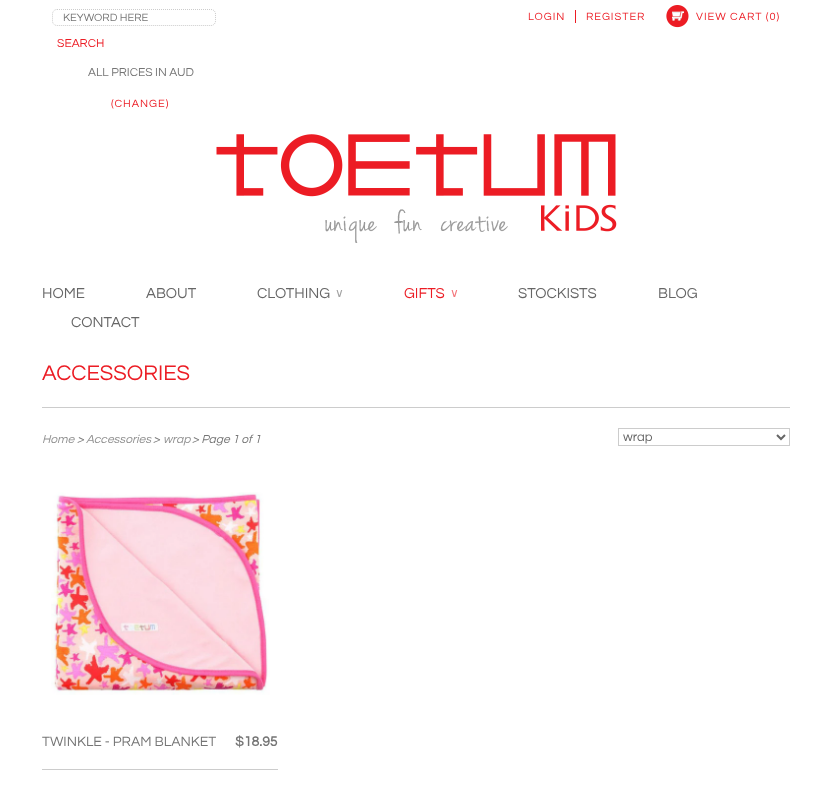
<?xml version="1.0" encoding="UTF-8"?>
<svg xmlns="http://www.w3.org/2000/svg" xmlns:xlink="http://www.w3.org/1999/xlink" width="832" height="804">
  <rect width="100%" height="100%" fill="#ffffff" />
  <path d="M 57 9.5 h 154 c 2.5 0 4.5 2 4.5 4.5 v 7 c 0 2.5 -2 4.5 -4.5 4.5 h -154 c -2.5 0 -4.5 -2 -4.5 -4.5 v -7 c 0 -2.5 2 -4.5 4.5 -4.5 z" fill="none" stroke="#cccccc" stroke-dasharray="1 1" />
  <rect x="575" y="10" width="1" height="13" fill="#ec1c24" />
  <image x="666" y="5" width="23" height="23" xlink:href="image1.png" />
  <image x="216" y="134" width="401" height="109" xlink:href="image2.png" />
  <rect x="42" y="407" width="748" height="1" fill="#cccccc" />
  <rect x="618.5" y="428.5" width="171" height="17" fill="none" stroke="#cccccc" />
  <path d="M 777 435 l 4 4 l 4 -4" fill="none" stroke="#666666" stroke-width="2" />
  <rect x="42" y="769" width="236" height="1" fill="#cccccc" />
  <image x="51" y="492" width="219" height="203" xlink:href="image3.png" />
  <text x="63" y="21" style="font-family: Questrial; font-size: 11px; fill: #757575">KEYWORD HERE</text>
  <text x="57" y="47" style="font-family: Questrial; font-size: 12px; fill: #ec1c24">SEARCH</text>
  <text x="88" y="76" style="font-family: Questrial; font-size: 12px; fill: #757575">ALL PRICES IN AUD</text>
  <text x="111" y="107" style="font-family: Questrial; font-size: 11px; letter-spacing: 1px; fill: #ec1c24">(CHANGE)</text>
  <text x="528" y="20" style="font-family: Questrial; font-size: 11px; letter-spacing: 1px; fill: #ec1c24">LOGIN</text>
  <text x="586" y="20" style="font-family: Questrial; font-size: 11px; letter-spacing: 1px; fill: #ec1c24">REGISTER</text>
  <text x="696" y="20" style="font-family: Questrial; font-size: 11px; letter-spacing: 1px; fill: #ec1c24">VIEW CART (0)</text>
  <text x="42" y="298" style="font-family: Questrial; font-size: 15px; fill: #666666">HOME</text>
  <text x="146" y="298" style="font-family: Questrial; font-size: 15px; fill: #666666">ABOUT</text>
  <text x="257" y="298" style="font-family: Questrial; font-size: 15px; fill: #666666">CLOTHING</text>
  <text x="335" y="297" style="font-family: DejaVu Sans; font-size: 12px; fill: #a3a3a3">∨</text>
  <text x="404" y="298" style="font-family: Questrial; font-size: 15px; fill: #ec1c24">GIFTS</text>
  <text x="450" y="297" style="font-family: DejaVu Sans; font-size: 12px; fill: #f4777c">∨</text>
  <text x="518" y="298" style="font-family: Questrial; font-size: 15px; fill: #666666">STOCKISTS</text>
  <text x="658" y="298" style="font-family: Questrial; font-size: 15px; fill: #666666">BLOG</text>
  <text x="71" y="327" style="font-family: Questrial; font-size: 15px; fill: #666666">CONTACT</text>
  <text x="42" y="380" style="font-family: Questrial; font-size: 22px; fill: #ec1c24">ACCESSORIES</text>
  <text x="42" y="443" style="font-family: Questrial; font-size: 12px; font-style: italic; fill: #919191">Home</text>
  <text x="77" y="443" style="font-family: Questrial; font-size: 12px; font-style: italic; fill: #757575">&gt;</text>
  <text x="86" y="443" style="font-family: Questrial; font-size: 12px; font-style: italic; fill: #919191">Accessories</text>
  <text x="153" y="443" style="font-family: Questrial; font-size: 12px; font-style: italic; fill: #757575">&gt;</text>
  <text x="163" y="443" style="font-family: Questrial; font-size: 12px; font-style: italic; fill: #919191">wrap</text>
  <text x="192" y="443" style="font-family: Questrial; font-size: 12px; font-style: italic; fill: #757575">&gt; Page 1 of 1</text>
  <text x="623" y="441" style="font-family: Questrial; font-size: 13px; fill: #666666">wrap</text>
  <text x="42" y="746" style="font-family: Questrial; font-size: 14px; fill: #757575">TWINKLE - PRAM BLANKET</text>
  <text x="235" y="746" style="font-family: Questrial; font-size: 14px; font-weight: bold; fill: #757575">$18.95</text>
</svg>
